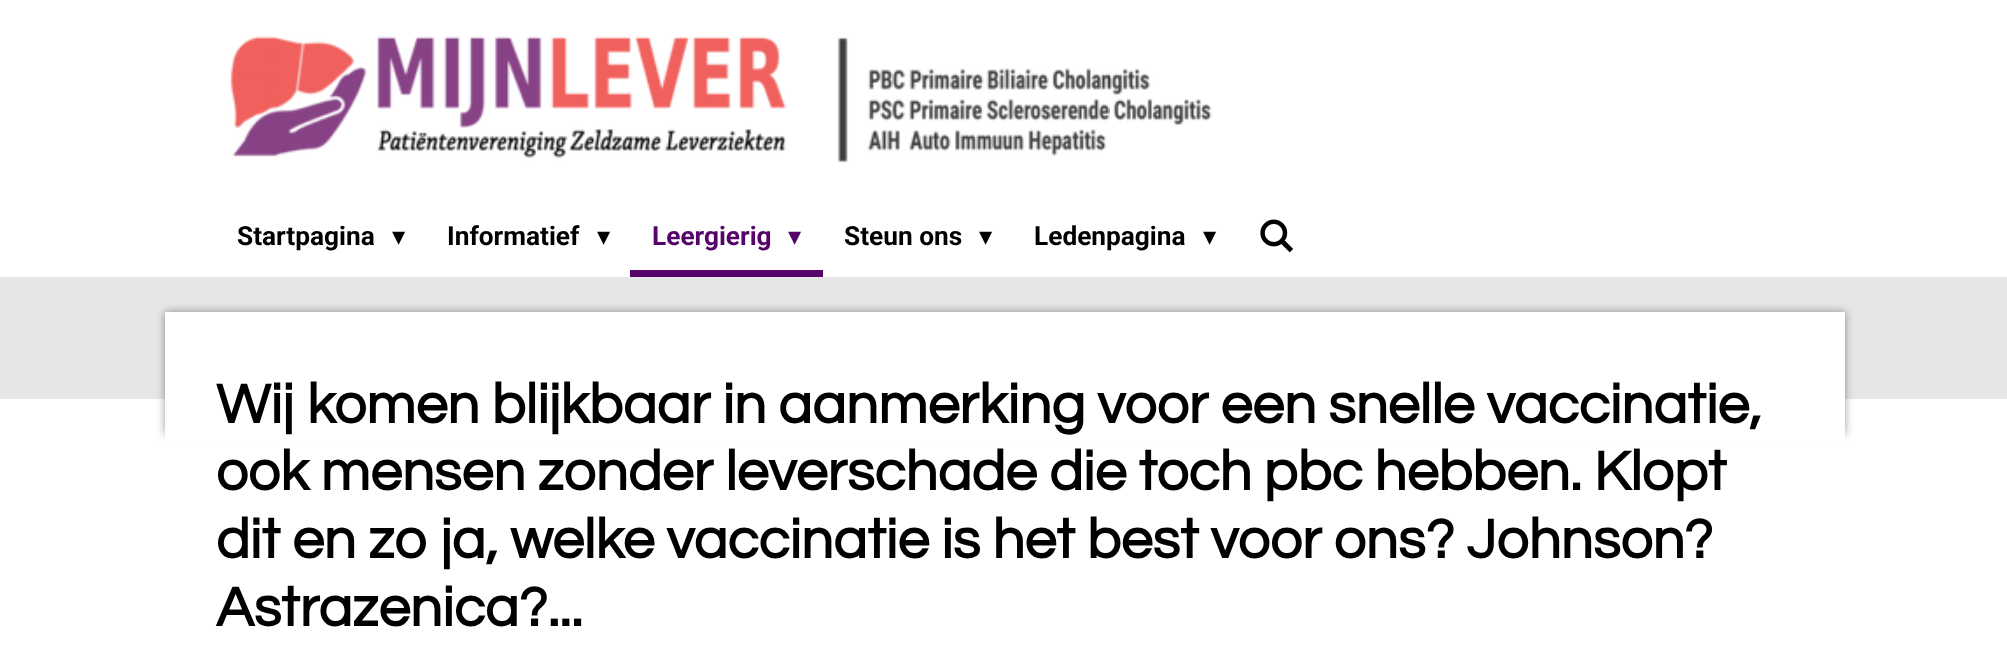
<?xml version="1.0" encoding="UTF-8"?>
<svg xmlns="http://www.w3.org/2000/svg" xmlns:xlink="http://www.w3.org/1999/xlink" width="2007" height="656">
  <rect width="100%" height="100%" fill="#ffffff" />
  <image x="230" y="36" width="982" height="127" xlink:href="image1.png" />
  <rect x="630" y="270" width="193" height="7" fill="#550569" />
  <image x="1260" y="219" width="34" height="34" xlink:href="image2.png" />
  <rect y="277" width="2007" height="122" fill="#e6e6e6" />
  <rect x="165" y="312" width="1680" height="122" fill="#000000" fill-opacity="0.4" filter="blur(4.5px)" />
  <rect x="165" y="312" width="1680" height="131" fill="#ffffff" />
  <text x="237" y="245" style="font-family: Roboto; font-size: 26.25px; font-weight: bold; fill: #000000">Startpagina</text>
  <text x="392" y="245" style="font-family: DejaVu Sans; font-size: 26.25px; fill: #000000">▾</text>
  <text x="447" y="245" style="font-family: Roboto; font-size: 26.25px; font-weight: bold; fill: #000000">Informatief</text>
  <text x="597" y="245" style="font-family: DejaVu Sans; font-size: 26.25px; fill: #000000">▾</text>
  <text x="652" y="245" style="font-family: Roboto; font-size: 26.25px; font-weight: bold; fill: #550569">Leergierig</text>
  <text x="788" y="245" style="font-family: DejaVu Sans; font-size: 26.25px; fill: #550569">▾</text>
  <text x="844" y="245" style="font-family: Roboto; font-size: 26.25px; font-weight: bold; fill: #000000">Steun ons</text>
  <text x="979" y="245" style="font-family: DejaVu Sans; font-size: 26.25px; fill: #000000">▾</text>
  <text x="1034" y="245" style="font-family: Roboto; font-size: 26.25px; font-weight: bold; fill: #000000">Ledenpagina</text>
  <text x="1203" y="245" style="font-family: DejaVu Sans; font-size: 26.25px; fill: #000000">▾</text>
  <text x="216" y="423" style="font-family: Questrial; font-size: 56.9px; font-weight: bold; fill: #000000">Wij komen blijkbaar in aanmerking voor een snelle vaccinatie,</text>
  <text x="216" y="490" style="font-family: Questrial; font-size: 56.9px; font-weight: bold; fill: #000000">ook mensen zonder leverschade die toch pbc hebben. Klopt</text>
  <text x="216" y="558" style="font-family: Questrial; font-size: 56.9px; font-weight: bold; fill: #000000">dit en zo ja, welke vaccinatie is het best voor ons? Johnson?</text>
  <text x="216" y="626" style="font-family: Questrial; font-size: 56.9px; font-weight: bold; fill: #000000">Astrazenica?...</text>
</svg>
